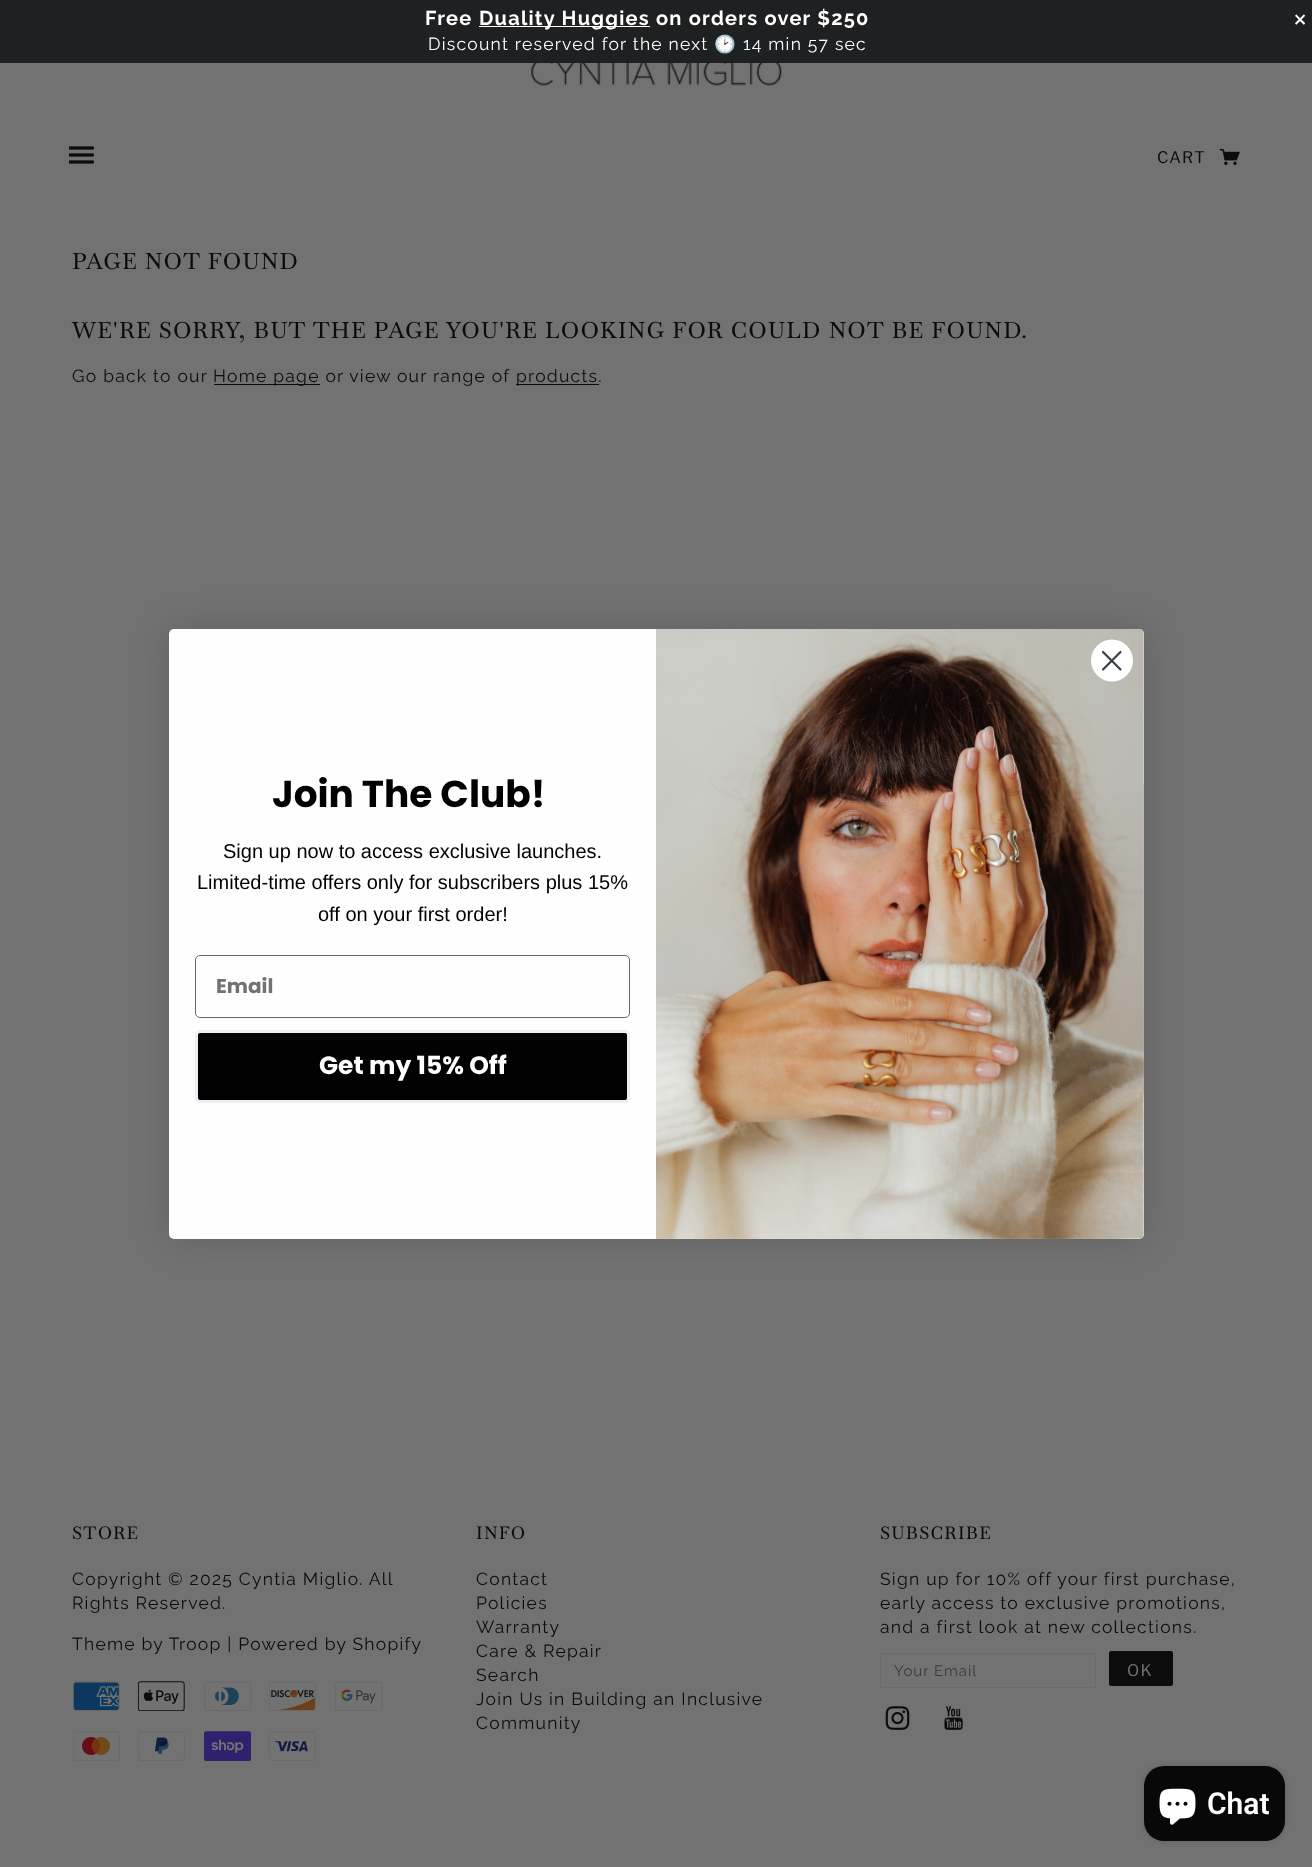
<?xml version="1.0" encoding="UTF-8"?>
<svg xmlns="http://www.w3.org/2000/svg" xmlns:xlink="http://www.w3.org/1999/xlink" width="1312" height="1867">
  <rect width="100%" height="100%" fill="#727272" />
  <rect width="1312" height="63" fill="#1f2021" />
  <rect x="479" y="26" width="171" height="1" fill="#ffffff" />
  <image x="531" y="63" width="251" height="23" xlink:href="image1.png" />
  <image x="69" y="146" width="25" height="18" xlink:href="image2.png" />
  <image x="1219" y="149" width="21" height="16" xlink:href="image3.png" />
  <rect x="214" y="384" width="106" height="1" fill="#0c0c0c" />
  <rect x="516" y="384" width="83" height="1" fill="#0c0c0c" />
  <image x="73" y="1681" width="47" height="30" xlink:href="image4.png" />
  <image x="138" y="1681" width="47" height="30" xlink:href="image5.png" />
  <image x="204" y="1681" width="47" height="30" xlink:href="image6.png" />
  <image x="269" y="1681" width="47" height="30" xlink:href="image7.png" />
  <image x="335" y="1681" width="48" height="30" xlink:href="image8.png" />
  <image x="73" y="1731" width="47" height="30" xlink:href="image9.png" />
  <image x="138" y="1731" width="47" height="30" xlink:href="image10.png" />
  <image x="204" y="1731" width="47" height="30" xlink:href="image11.png" />
  <image x="269" y="1731" width="47" height="30" xlink:href="image12.png" />
  <rect x="880.5" y="1653.5" width="215" height="34" rx="2" fill="none" stroke="#6a6a6a" />
  <rect x="1109" y="1651" width="64" height="35" rx="2.5" fill="#0c0c0c" />
  <image x="885" y="1706" width="25" height="24" xlink:href="image13.png" />
  <image x="944" y="1706" width="19" height="24" xlink:href="image14.png" />
  <rect x="169" y="629" width="975" height="610" rx="5" fill="#000000" fill-opacity="0.15" filter="blur(19px)" />
  <rect x="169" y="629" width="975" height="610" rx="5" fill="#fefefe" />
  <image x="656" y="629" width="488" height="610" xlink:href="image15.png" />
  <circle cx="1112" cy="660.5" r="21" fill="#ffffff" />
  <path d="M 1103 652 l 17.5 17.5 m -17.5 0 l 17.5 -17.5 z" fill="none" stroke="#373f47" stroke-width="2.2" stroke-linecap="round" stroke-linejoin="round" />
  <rect x="195.5" y="955.5" width="434" height="62" rx="4.5" fill="none" stroke="#606a72" />
  <rect x="196.5" y="1031.5" width="432" height="70" rx="3.5" fill="#020202" stroke="#eceff3" stroke-width="3" />
  <rect x="1144" y="1766" width="141" height="75" rx="20" fill="#000000" fill-opacity="0.15" filter="blur(3px)" />
  <rect x="1144" y="1766" width="141" height="75" rx="20" fill="#080808" />
  <image x="1159" y="1788" width="37" height="37" xlink:href="image16.png" />
  <text x="425" y="25" style="font-family: Raleway; font-size: 20px; font-weight: bold; letter-spacing: 1.25px; fill: #ffffff">Free</text>
  <text x="479" y="25" style="font-family: Raleway; font-size: 20px; font-weight: bold; letter-spacing: 1.25px; fill: #ffffff">Duality Huggies on orders over $250</text>
  <text x="428" y="50" style="font-family: Raleway; font-size: 17.5px; letter-spacing: 1.25px; fill: #ffffff">Discount reserved for the next</text>
  <text x="714" y="50" style="font-family: Noto Color Emoji; font-size: 17.5px; letter-spacing: 1.25px; fill: #ffffff">🕑</text>
  <text x="743" y="50" style="font-family: Raleway; font-size: 17.5px; letter-spacing: 1.25px; fill: #ffffff">14 min 57 sec</text>
  <text x="1293" y="28" style="font-family: Raleway; font-size: 31px; letter-spacing: 1.25px; fill: #ffffff">×</text>
  <text x="1157" y="163" style="font-family: Libre Franklin; font-size: 16px; letter-spacing: 1.25px; fill: #0c0c0c">CART</text>
  <text x="72" y="269" style="font-family: Baskervville; font-size: 22.5px; font-weight: 500; letter-spacing: 1.25px; fill: #0c0c0c">PAGE NOT FOUND</text>
  <text x="72" y="338" style="font-family: Baskervville; font-size: 22.5px; font-weight: 500; letter-spacing: 1.25px; fill: #0c0c0c">WE'RE SORRY, BUT THE PAGE YOU'RE LOOKING FOR COULD NOT BE FOUND.</text>
  <text x="72" y="382" style="font-family: Raleway; font-size: 17.5px; letter-spacing: 1.25px; fill: #0c0c0c">Go back to our</text>
  <text x="213" y="382" style="font-family: Raleway; font-size: 17.5px; letter-spacing: 1.25px; fill: #0c0c0c">Home page or view our range of</text>
  <text x="516" y="382" style="font-family: Raleway; font-size: 17.5px; letter-spacing: 1.25px; fill: #0c0c0c">products.</text>
  <text x="72" y="1539" style="font-family: Baskervville; font-size: 17.5px; font-weight: 500; letter-spacing: 1.25px; fill: #0c0c0c">STORE</text>
  <text x="72" y="1585" style="font-family: Raleway; font-size: 17.5px; letter-spacing: 1.25px; fill: #0c0c0c">Copyright © 2025 Cyntia Miglio. All</text>
  <text x="72" y="1609" style="font-family: Raleway; font-size: 17.5px; letter-spacing: 1.25px; fill: #0c0c0c">Rights Reserved.</text>
  <text x="72" y="1650" style="font-family: Raleway; font-size: 17.5px; letter-spacing: 1.25px; fill: #0c0c0c">Theme by Troop | Powered by Shopify</text>
  <text x="476" y="1539" style="font-family: Baskervville; font-size: 17.5px; font-weight: 500; letter-spacing: 1.25px; fill: #0c0c0c">INFO</text>
  <text x="476" y="1585" style="font-family: Raleway; font-size: 17.5px; letter-spacing: 1.25px; fill: #0c0c0c">Contact</text>
  <text x="476" y="1609" style="font-family: Raleway; font-size: 17.5px; letter-spacing: 1.25px; fill: #0c0c0c">Policies</text>
  <text x="476" y="1633" style="font-family: Raleway; font-size: 17.5px; letter-spacing: 1.25px; fill: #0c0c0c">Warranty</text>
  <text x="476" y="1657" style="font-family: Raleway; font-size: 17.5px; letter-spacing: 1.25px; fill: #0c0c0c">Care &amp; Repair</text>
  <text x="476" y="1681" style="font-family: Raleway; font-size: 17.5px; letter-spacing: 1.25px; fill: #0c0c0c">Search</text>
  <text x="476" y="1705" style="font-family: Raleway; font-size: 17.5px; letter-spacing: 1.25px; fill: #0c0c0c">Join Us in Building an Inclusive</text>
  <text x="476" y="1729" style="font-family: Raleway; font-size: 17.5px; letter-spacing: 1.25px; fill: #0c0c0c">Community</text>
  <text x="880" y="1539" style="font-family: Baskervville; font-size: 17.5px; font-weight: 500; letter-spacing: 1.25px; fill: #0c0c0c">SUBSCRIBE</text>
  <text x="880" y="1585" style="font-family: Raleway; font-size: 17.5px; letter-spacing: 1.25px; fill: #0c0c0c">Sign up for 10% off your first purchase,</text>
  <text x="880" y="1609" style="font-family: Raleway; font-size: 17.5px; letter-spacing: 1.25px; fill: #0c0c0c">early access to exclusive promotions,</text>
  <text x="880" y="1633" style="font-family: Raleway; font-size: 17.5px; letter-spacing: 1.25px; fill: #0c0c0c">and a first look at new collections.</text>
  <text x="894" y="1676" style="font-family: Raleway; font-size: 15px; letter-spacing: 1px; fill: #3b3b3b">Your Email</text>
  <text x="1127" y="1676" style="font-family: Libre Franklin; font-size: 16px; letter-spacing: 1.25px; fill: #727272">OK</text>
  <text x="272" y="807" style="font-family: Poppins; font-size: 37.5px; font-weight: bold; fill: #000000">Join The Club!</text>
  <text x="223" y="858" style="font-family: Liberation Sans; font-size: 20px; fill: #000000">Sign up now to access exclusive launches.</text>
  <text x="197" y="889" style="font-family: Liberation Sans; font-size: 20px; fill: #000000">Limited-time offers only for subscribers plus 15%</text>
  <text x="318" y="921" style="font-family: Liberation Sans; font-size: 20px; fill: #000000">off on your first order!</text>
  <text x="216" y="993" style="font-family: Poppins; font-size: 20px; font-weight: bold; fill: #727272">Email</text>
  <text x="319" y="1074" style="font-family: Poppins; font-size: 25px; font-weight: bold; fill: #ffffff">Get my 15% Off</text>
  <text x="1207" y="1814" style="font-family: Roboto; font-size: 30px; font-weight: 600; fill: #ffffff">Chat</text>
</svg>
